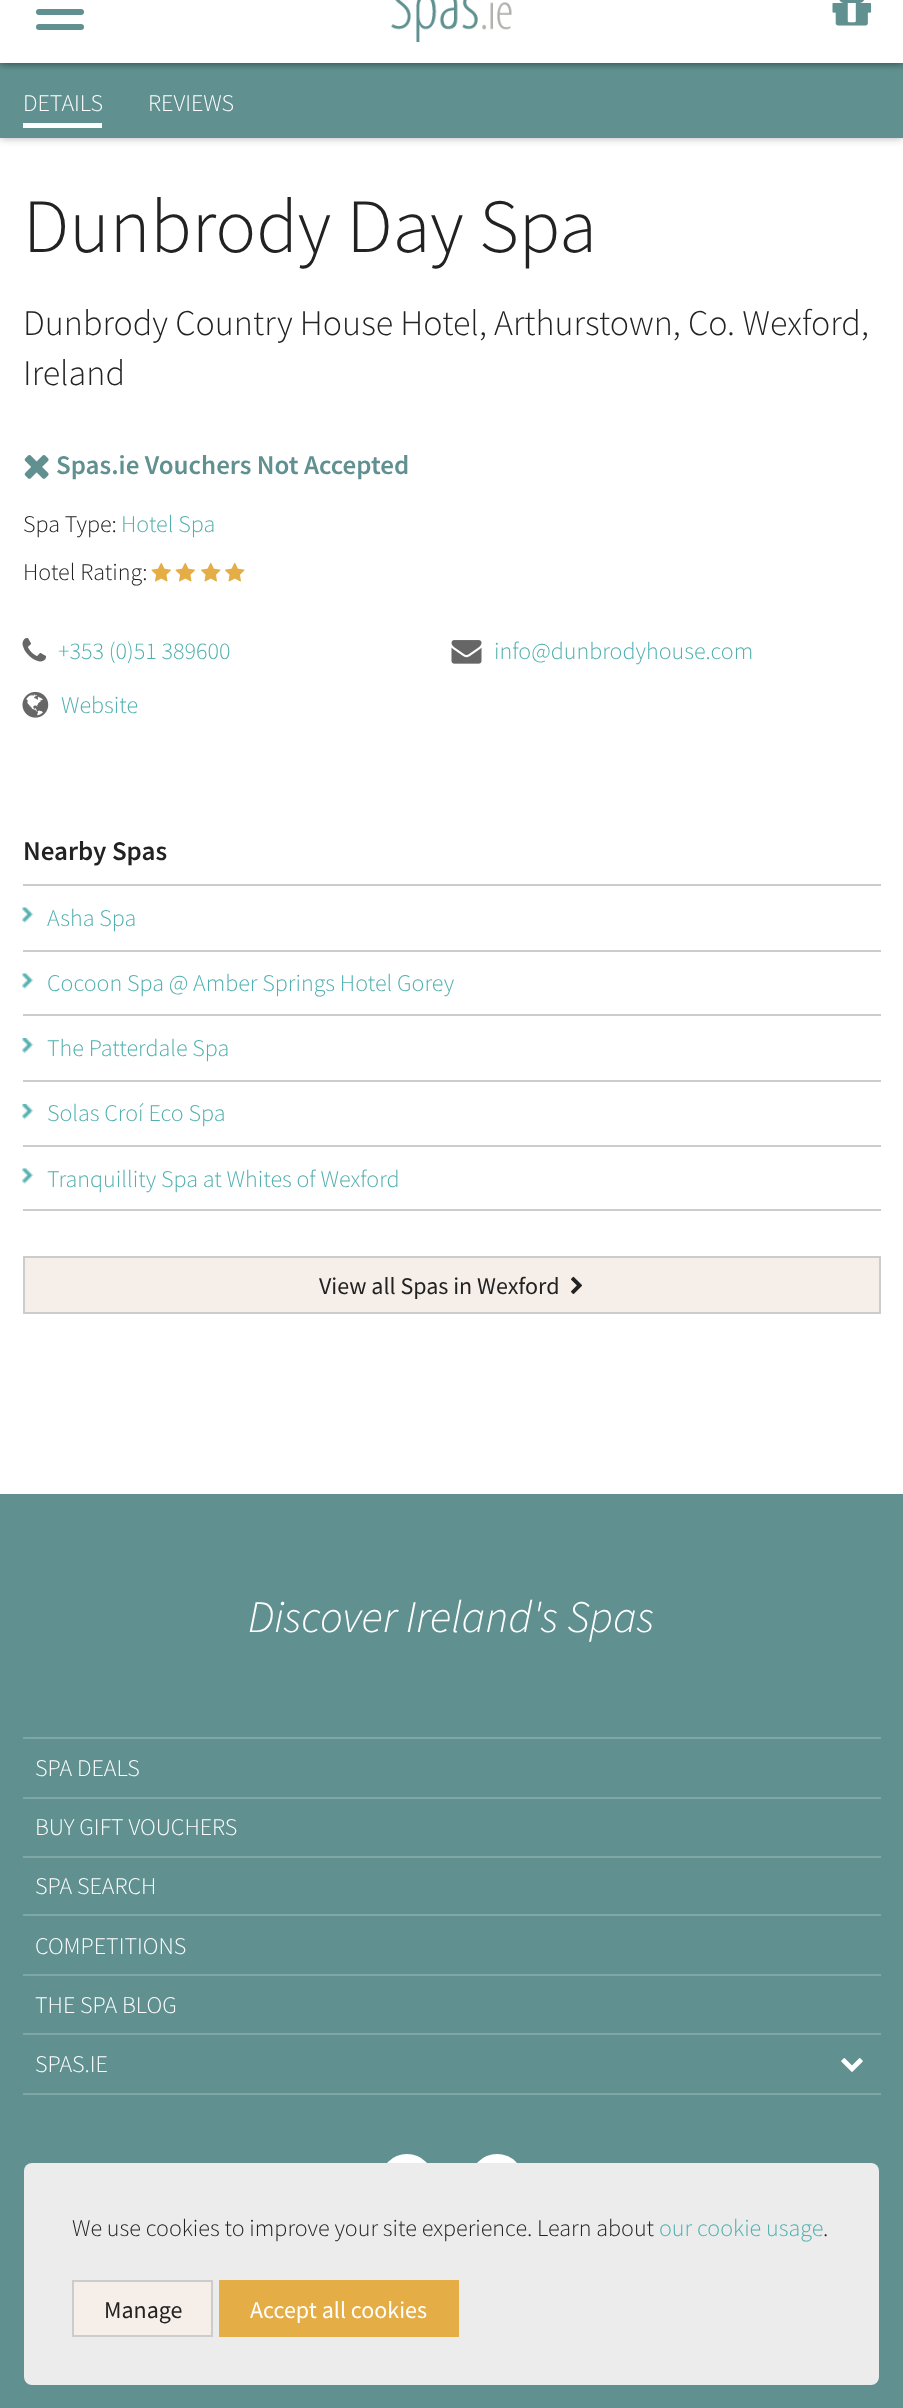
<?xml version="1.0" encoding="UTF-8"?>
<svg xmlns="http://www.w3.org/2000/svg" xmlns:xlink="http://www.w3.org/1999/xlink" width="903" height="2408">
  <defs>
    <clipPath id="clip1"><rect x="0" y="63" width="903" height="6" /></clipPath>
  </defs>
  <rect width="100%" height="100%" fill="#ffffff" />
  <rect y="63" width="903" height="75" fill="#000000" fill-opacity="0.3" filter="blur(4px)" />
  <rect y="63" width="903" height="75" fill="#609090" />
  <rect y="-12" width="903" height="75" fill="#000000" fill-opacity="0.3" filter="blur(4px)" />
  <rect width="903" height="63" fill="#ffffff" />
  <g clip-path="url(#clip1)">
    <rect y="-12" width="903" height="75" fill="#000000" fill-opacity="0.3" filter="blur(4px)" />
  </g>
  <image x="391" y="0" width="121" height="42" xlink:href="image1.png" />
  <image x="832" y="0" width="40" height="26" xlink:href="image2.png" />
  <rect x="36" y="9" width="48" height="6" rx="3" fill="#609090" />
  <rect x="36" y="24" width="48" height="6" rx="3" fill="#609090" />
  <rect x="23" y="123" width="79" height="5" fill="#ffffff" />
  <image x="24" y="455" width="25" height="24" xlink:href="image3.png" />
  <image x="151" y="562" width="20" height="20" xlink:href="image4.png" />
  <image x="175" y="562" width="20" height="20" xlink:href="image4.png" />
  <image x="201" y="562" width="20" height="20" xlink:href="image5.png" />
  <image x="225" y="562" width="20" height="20" xlink:href="image5.png" />
  <image x="22" y="637" width="25" height="25" xlink:href="image6.png" />
  <image x="451" y="640" width="31" height="24" xlink:href="image7.png" />
  <image x="22" y="691" width="27" height="27" xlink:href="image8.png" />
  <rect x="23" y="884" width="858" height="2" fill="#cccccc" />
  <rect x="23" y="950" width="858" height="2" fill="#cccccc" />
  <image x="22" y="907" width="12" height="16" xlink:href="image9.png" />
  <rect x="23" y="1014" width="858" height="2" fill="#cccccc" />
  <image x="22" y="973" width="12" height="16" xlink:href="image9.png" />
  <rect x="23" y="1080" width="858" height="2" fill="#cccccc" />
  <image x="22" y="1038" width="12" height="16" xlink:href="image10.png" />
  <rect x="23" y="1145" width="858" height="2" fill="#cccccc" />
  <image x="22" y="1104" width="12" height="16" xlink:href="image10.png" />
  <rect x="23" y="1209" width="858" height="2" fill="#cccccc" />
  <image x="22" y="1168" width="12" height="16" xlink:href="image9.png" />
  <rect x="24" y="1257" width="856" height="56" fill="#f5eee9" stroke="#cccccc" stroke-width="2" />
  <image x="571" y="1276" width="11" height="18" xlink:href="image11.png" />
  <rect y="1494" width="903" height="914" fill="#609090" />
  <rect x="23" y="1737" width="858" height="2" fill="#80a6a6" />
  <rect x="23" y="1797" width="858" height="2" fill="#80a6a6" />
  <rect x="23" y="1856" width="858" height="2" fill="#80a6a6" />
  <rect x="23" y="1914" width="858" height="2" fill="#80a6a6" />
  <rect x="23" y="1974" width="858" height="2" fill="#80a6a6" />
  <rect x="23" y="2033" width="858" height="2" fill="#80a6a6" />
  <rect x="23" y="2093" width="858" height="2" fill="#80a6a6" />
  <image x="841" y="2058" width="22" height="14" xlink:href="image12.png" />
  <circle cx="407" cy="2181" r="27" fill="#ffffff" />
  <circle cx="497" cy="2181" r="27" fill="#ffffff" />
  <rect x="24" y="2163" width="855" height="222" rx="8" fill="#ececec" />
  <rect x="73" y="2281" width="139" height="55" fill="#f5eee9" stroke="#cccccc" stroke-width="2" />
  <rect x="219" y="2280" width="240" height="57" fill="#e4ad45" />
  <text x="23" y="111" style="font-family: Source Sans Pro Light; font-size: 24px; font-weight: 300; fill: #ffffff">DETAILS</text>
  <text x="148" y="111" style="font-family: Source Sans Pro Light; font-size: 24px; font-weight: 300; fill: #ffffff">REVIEWS</text>
  <text x="23" y="252" style="font-family: Source Sans Pro Light; font-size: 76.5px; font-weight: 300; fill: #222222">Dunbrody Day Spa</text>
  <text x="23" y="335" style="font-family: Source Sans Pro Light; font-size: 36px; font-weight: 300; fill: #222222">Dunbrody Country House Hotel, Arthurstown, Co. Wexford,</text>
  <text x="23" y="385" style="font-family: Source Sans Pro Light; font-size: 36px; font-weight: 300; fill: #222222">Ireland</text>
  <text x="56" y="474" style="font-family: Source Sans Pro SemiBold; font-size: 27px; font-weight: 600; fill: #609090">Spas.ie Vouchers Not Accepted</text>
  <text x="23" y="532" style="font-family: Source Sans Pro Light; font-size: 24px; font-weight: 300; fill: #222222">Spa Type:</text>
  <text x="121" y="532" style="font-family: Source Sans Pro Light; font-size: 24px; font-weight: 300; fill: #50afaf">Hotel Spa</text>
  <text x="23" y="580" style="font-family: Source Sans Pro Light; font-size: 24px; font-weight: 300; fill: #222222">Hotel Rating:</text>
  <text x="58" y="659" style="font-family: Source Sans Pro Light; font-size: 24px; font-weight: 300; fill: #50afaf">+353 (0)51 389600</text>
  <text x="494" y="659" style="font-family: Source Sans Pro Light; font-size: 24px; font-weight: 300; fill: #50afaf">info@dunbrodyhouse.com</text>
  <text x="61" y="713" style="font-family: Source Sans Pro Light; font-size: 24px; font-weight: 300; fill: #50afaf">Website</text>
  <text x="23" y="860" style="font-family: Source Sans Pro SemiBold; font-size: 27px; font-weight: 600; fill: #222222">Nearby Spas</text>
  <text x="47" y="926" style="font-family: Source Sans Pro Light; font-size: 24px; font-weight: 300; fill: #50afaf">Asha Spa</text>
  <text x="47" y="991" style="font-family: Source Sans Pro Light; font-size: 24px; font-weight: 300; fill: #50afaf">Cocoon Spa @ Amber Springs Hotel Gorey</text>
  <text x="47" y="1056" style="font-family: Source Sans Pro Light; font-size: 24px; font-weight: 300; fill: #50afaf">The Patterdale Spa</text>
  <text x="47" y="1121" style="font-family: Source Sans Pro Light; font-size: 24px; font-weight: 300; fill: #50afaf">Solas Croí Eco Spa</text>
  <text x="47" y="1187" style="font-family: Source Sans Pro Light; font-size: 24px; font-weight: 300; fill: #50afaf">Tranquillity Spa at Whites of Wexford</text>
  <text x="319" y="1294" style="font-family: Source Sans Pro; font-size: 24px; fill: #222222">View all Spas in Wexford</text>
  <text x="248" y="1632" style="font-family: Source Sans Pro Light; font-size: 45px; font-weight: 300; font-style: italic; fill: #ffffff">Discover Ireland's Spas</text>
  <text x="35" y="1776" style="font-family: Source Sans Pro Light; font-size: 24px; font-weight: 300; fill: #ffffff">SPA DEALS</text>
  <text x="35" y="1835" style="font-family: Source Sans Pro Light; font-size: 24px; font-weight: 300; fill: #ffffff">BUY GIFT VOUCHERS</text>
  <text x="35" y="1894" style="font-family: Source Sans Pro Light; font-size: 24px; font-weight: 300; fill: #ffffff">SPA SEARCH</text>
  <text x="35" y="1954" style="font-family: Source Sans Pro Light; font-size: 24px; font-weight: 300; fill: #ffffff">COMPETITIONS</text>
  <text x="35" y="2013" style="font-family: Source Sans Pro Light; font-size: 24px; font-weight: 300; fill: #ffffff">THE SPA BLOG</text>
  <text x="35" y="2072" style="font-family: Source Sans Pro Light; font-size: 24px; font-weight: 300; fill: #ffffff">SPAS.IE</text>
  <text x="72" y="2236" style="font-family: Source Sans Pro Light; font-size: 24px; font-weight: 300; fill: #222222">We use cookies to improve your site experience. Learn about</text>
  <text x="659" y="2236" style="font-family: Source Sans Pro Light; font-size: 24px; font-weight: 300; fill: #50afaf">our cookie usage</text>
  <text x="823" y="2236" style="font-family: Source Sans Pro Light; font-size: 24px; font-weight: 300; fill: #222222">.</text>
  <text x="104" y="2318" style="font-family: Source Sans Pro; font-size: 24px; fill: #222222">Manage</text>
  <text x="250" y="2318" style="font-family: Source Sans Pro; font-size: 24px; fill: #ffffff">Accept all cookies</text>
</svg>
